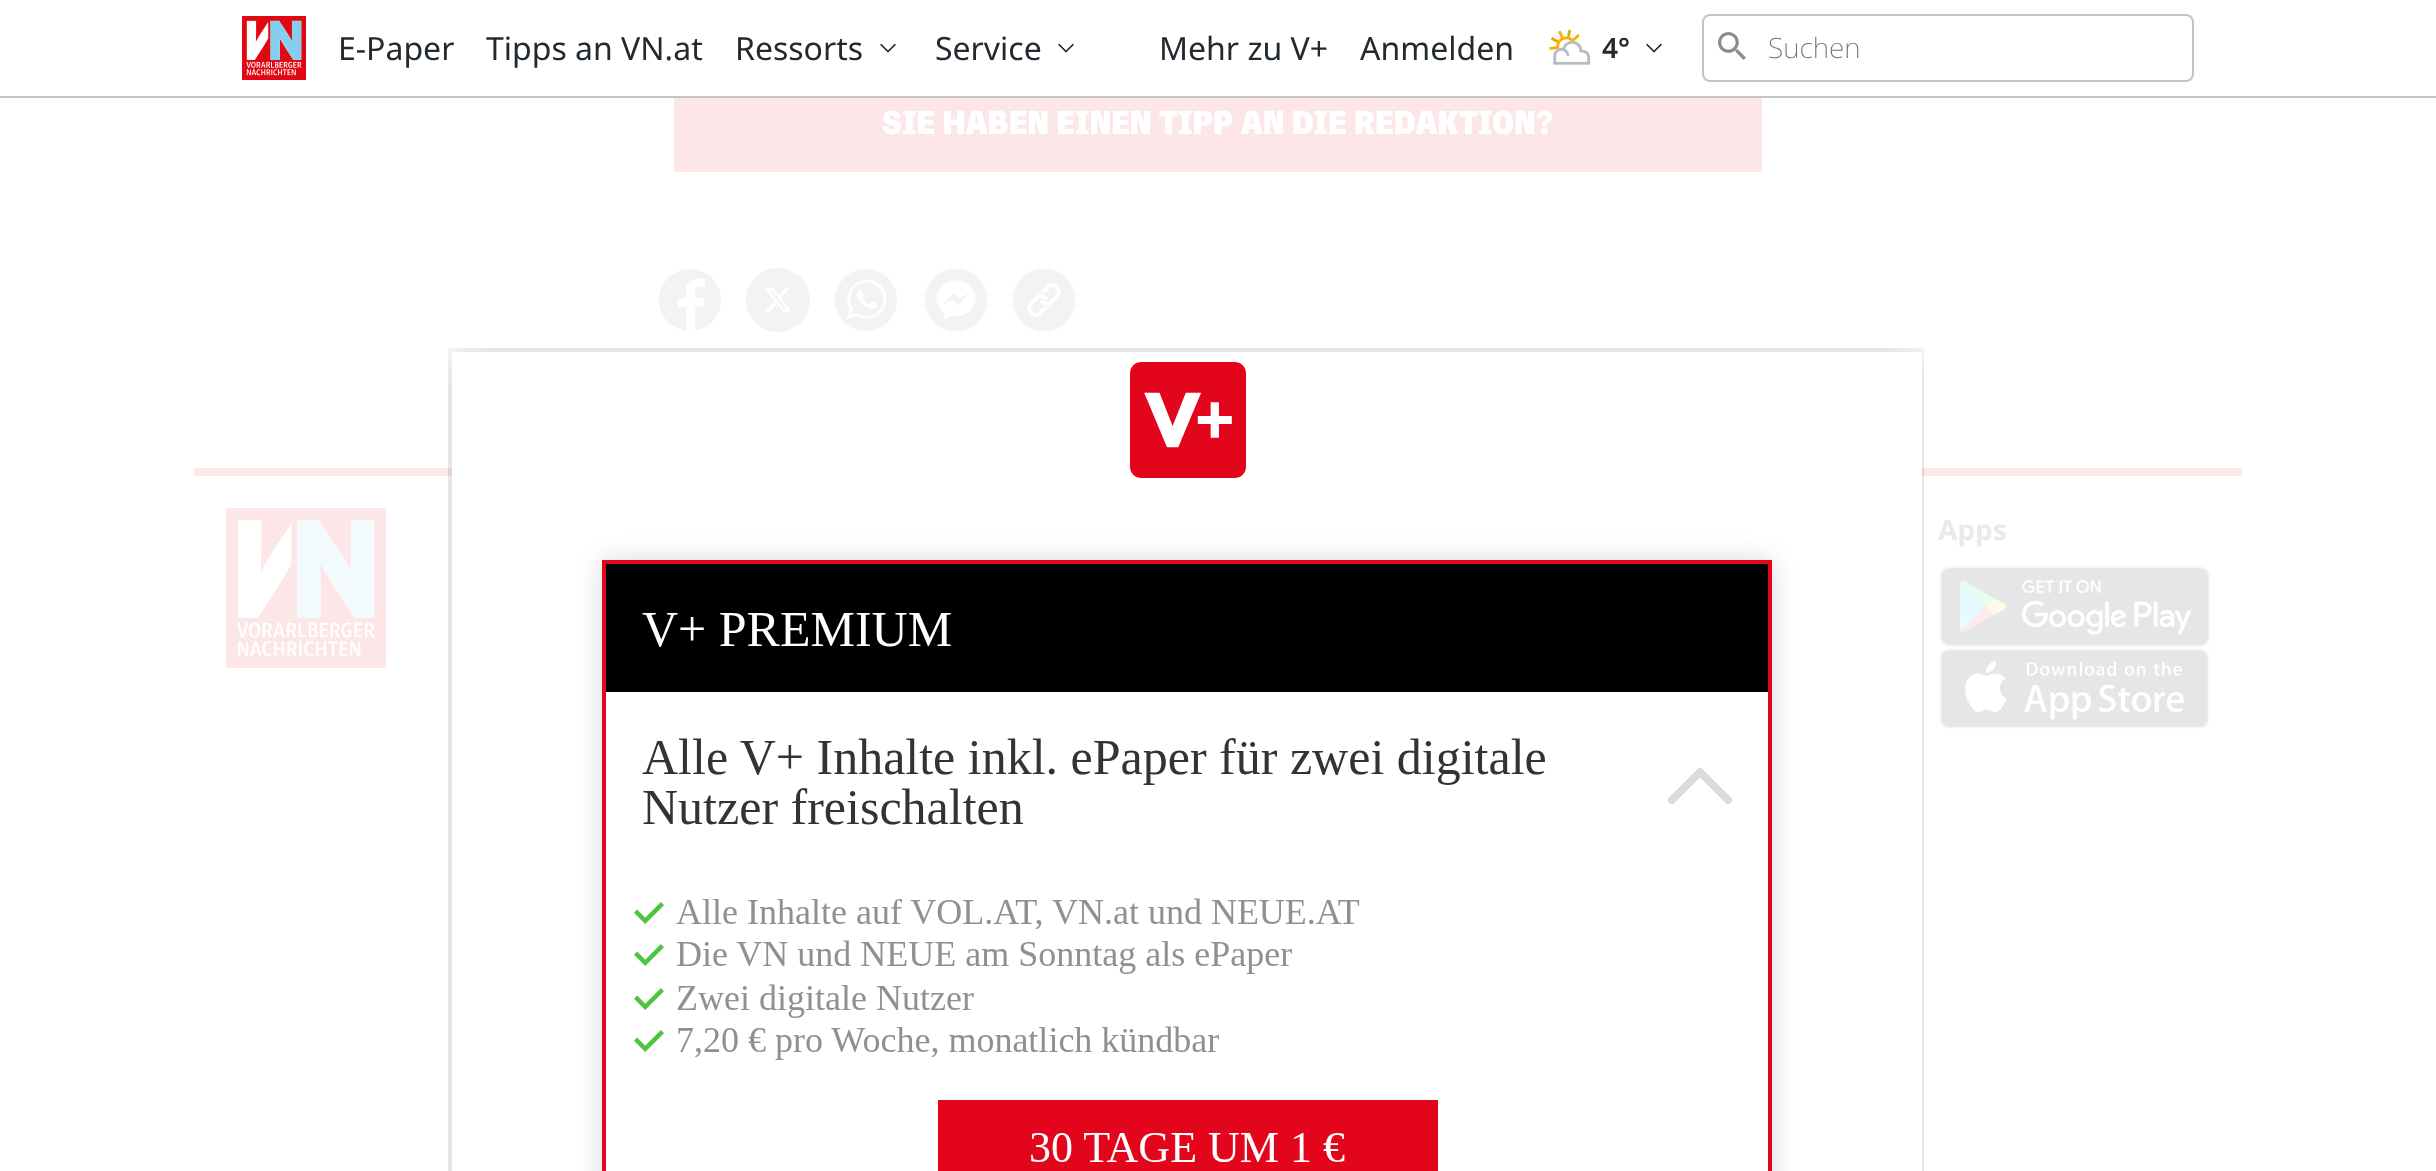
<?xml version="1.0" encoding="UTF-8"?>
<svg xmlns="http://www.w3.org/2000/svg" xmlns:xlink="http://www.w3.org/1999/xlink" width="2436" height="1171">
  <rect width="100%" height="100%" fill="#ffffff" />
  <rect y="96" width="2436" height="2" fill="#c4c4c4" />
  <image x="242" y="16" width="64" height="64" xlink:href="image1.png" />
  <image x="880" y="43" width="16" height="10" xlink:href="image2.png" />
  <image x="1058" y="43" width="16" height="10" xlink:href="image2.png" />
  <image x="1549" y="29" width="42" height="36" xlink:href="image3.png" />
  <image x="1646" y="43" width="16" height="10" xlink:href="image2.png" />
  <rect x="1703" y="15" width="490" height="66" rx="7" fill="none" stroke="#c4c4c4" stroke-width="2" />
  <image x="1718" y="32" width="28" height="28" xlink:href="image4.png" />
  <rect x="674" y="98" width="1088" height="74" fill="#fce6e7" />
  <circle cx="690" cy="300" r="31.5" fill="#f3f3f3" stroke="#ffffff" />
  <path d="M 695 331 v -24 h 8 l 2 -9 h -10 c 0 -10 -1 -11 10 -11 v -8 c -8 -1 -17 -1 -19 9 v 10 h -8 v 9 h 8 v 24 z" fill="#ffffff" />
  <image x="746" y="268" width="64" height="64" xlink:href="image5.png" />
  <image x="834" y="268" width="64" height="64" xlink:href="image6.png" />
  <image x="924" y="268" width="64" height="64" xlink:href="image7.png" />
  <image x="1012" y="268" width="64" height="64" xlink:href="image8.png" />
  <rect x="194" y="468" width="2048" height="8" fill="#fce6e7" />
  <image x="226" y="508" width="160" height="160" xlink:href="image9.png" />
  <image x="1939" y="566" width="271" height="81" xlink:href="image10.png" />
  <image x="1939" y="648" width="271" height="81" xlink:href="image11.png" />
  <image x="448" y="348" width="1476" height="823" xlink:href="image12.png" />
  <text x="338" y="60" style="font-family: Noto Sans; font-size: 32px; fill: #22292f">E-Paper</text>
  <text x="486" y="60" style="font-family: Noto Sans; font-size: 32px; fill: #22292f">Tipps an VN.at</text>
  <text x="735" y="60" style="font-family: Noto Sans; font-size: 32px; fill: #22292f">Ressorts</text>
  <text x="935" y="60" style="font-family: Noto Sans; font-size: 32px; fill: #22292f">Service</text>
  <text x="1159" y="60" style="font-family: Noto Sans; font-size: 32px; fill: #22292f">Mehr zu V+</text>
  <text x="1360" y="60" style="font-family: Noto Sans; font-size: 32px; fill: #22292f">Anmelden</text>
  <text x="1602" y="58" style="font-family: Noto Sans; font-size: 28px; font-weight: 600; fill: #22292f">4°</text>
  <text x="1768" y="58" style="font-family: Noto Sans; font-size: 28px; font-weight: 200; fill: #6b7280">Suchen</text>
  <text x="882" y="134" style="font-family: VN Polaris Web; font-size: 32px; font-weight: 900; letter-spacing: 0.8px; fill: #ffffff">SIE HABEN EINEN TIPP AN DIE REDAKTION?</text>
  <text x="1938" y="540" style="font-family: Noto Sans; font-size: 28px; font-weight: bold; fill: #e9eaea">Apps</text>
</svg>
